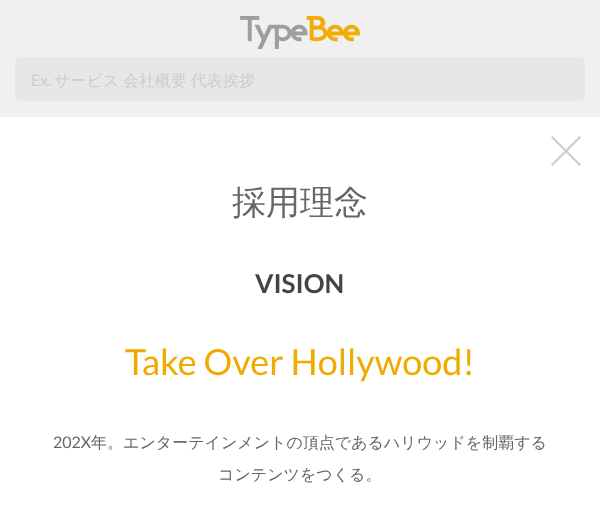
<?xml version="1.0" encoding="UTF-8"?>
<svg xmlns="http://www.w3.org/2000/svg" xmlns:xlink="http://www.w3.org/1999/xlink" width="600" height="507">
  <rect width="100%" height="100%" fill="#f0f0f0" />
  <image x="240" y="16" width="120" height="33" xlink:href="image1.png" />
  <rect x="15" y="57" width="570" height="44" rx="6" fill="#e7e7e7" />
  <rect y="117" width="600" height="390" fill="#ffffff" />
  <path d="M 579.5 136 l 1.5 1.5 l -28.5 28.5 l -1.5 -1.5 z" fill="#cccccc" />
  <path d="M 551 137.5 l 1.5 -1.5 l 28.5 28.5 l -1.5 1.5 z" fill="#cccccc" />
  <text x="31" y="86" style="font-family: Lato; font-size: 16px; fill: #cccccc">Ex.</text>
  <text x="54" y="86" word-spacing="-1" style="font-family: WenQuanYi Zen Hei; font-size: 16px; font-weight: 500; fill: #cccccc">サービス 会社概要 代表挨拶</text>
  <text x="232" y="214" style="font-family: WenQuanYi Zen Hei; font-size: 34px; font-weight: 500; fill: #666666">採用理念</text>
  <text x="255" y="293" style="font-family: Lato; font-size: 26px; font-weight: bold; fill: #444444">VISION</text>
  <text x="125" y="375" style="font-family: Lato; font-size: 36px; fill: #f0aa00">Take Over Hollywood!</text>
  <text x="53" y="448" style="font-family: Lato; font-size: 16px; fill: #666666">202X</text>
  <text x="91" y="448" style="font-family: WenQuanYi Zen Hei; font-size: 16px; font-weight: 500; fill: #666666">年。エンターテインメントの頂点であるハリウッドを制覇する</text>
  <text x="218" y="480" style="font-family: WenQuanYi Zen Hei; font-size: 16px; font-weight: 500; fill: #666666">コンテンツをつくる。</text>
</svg>
